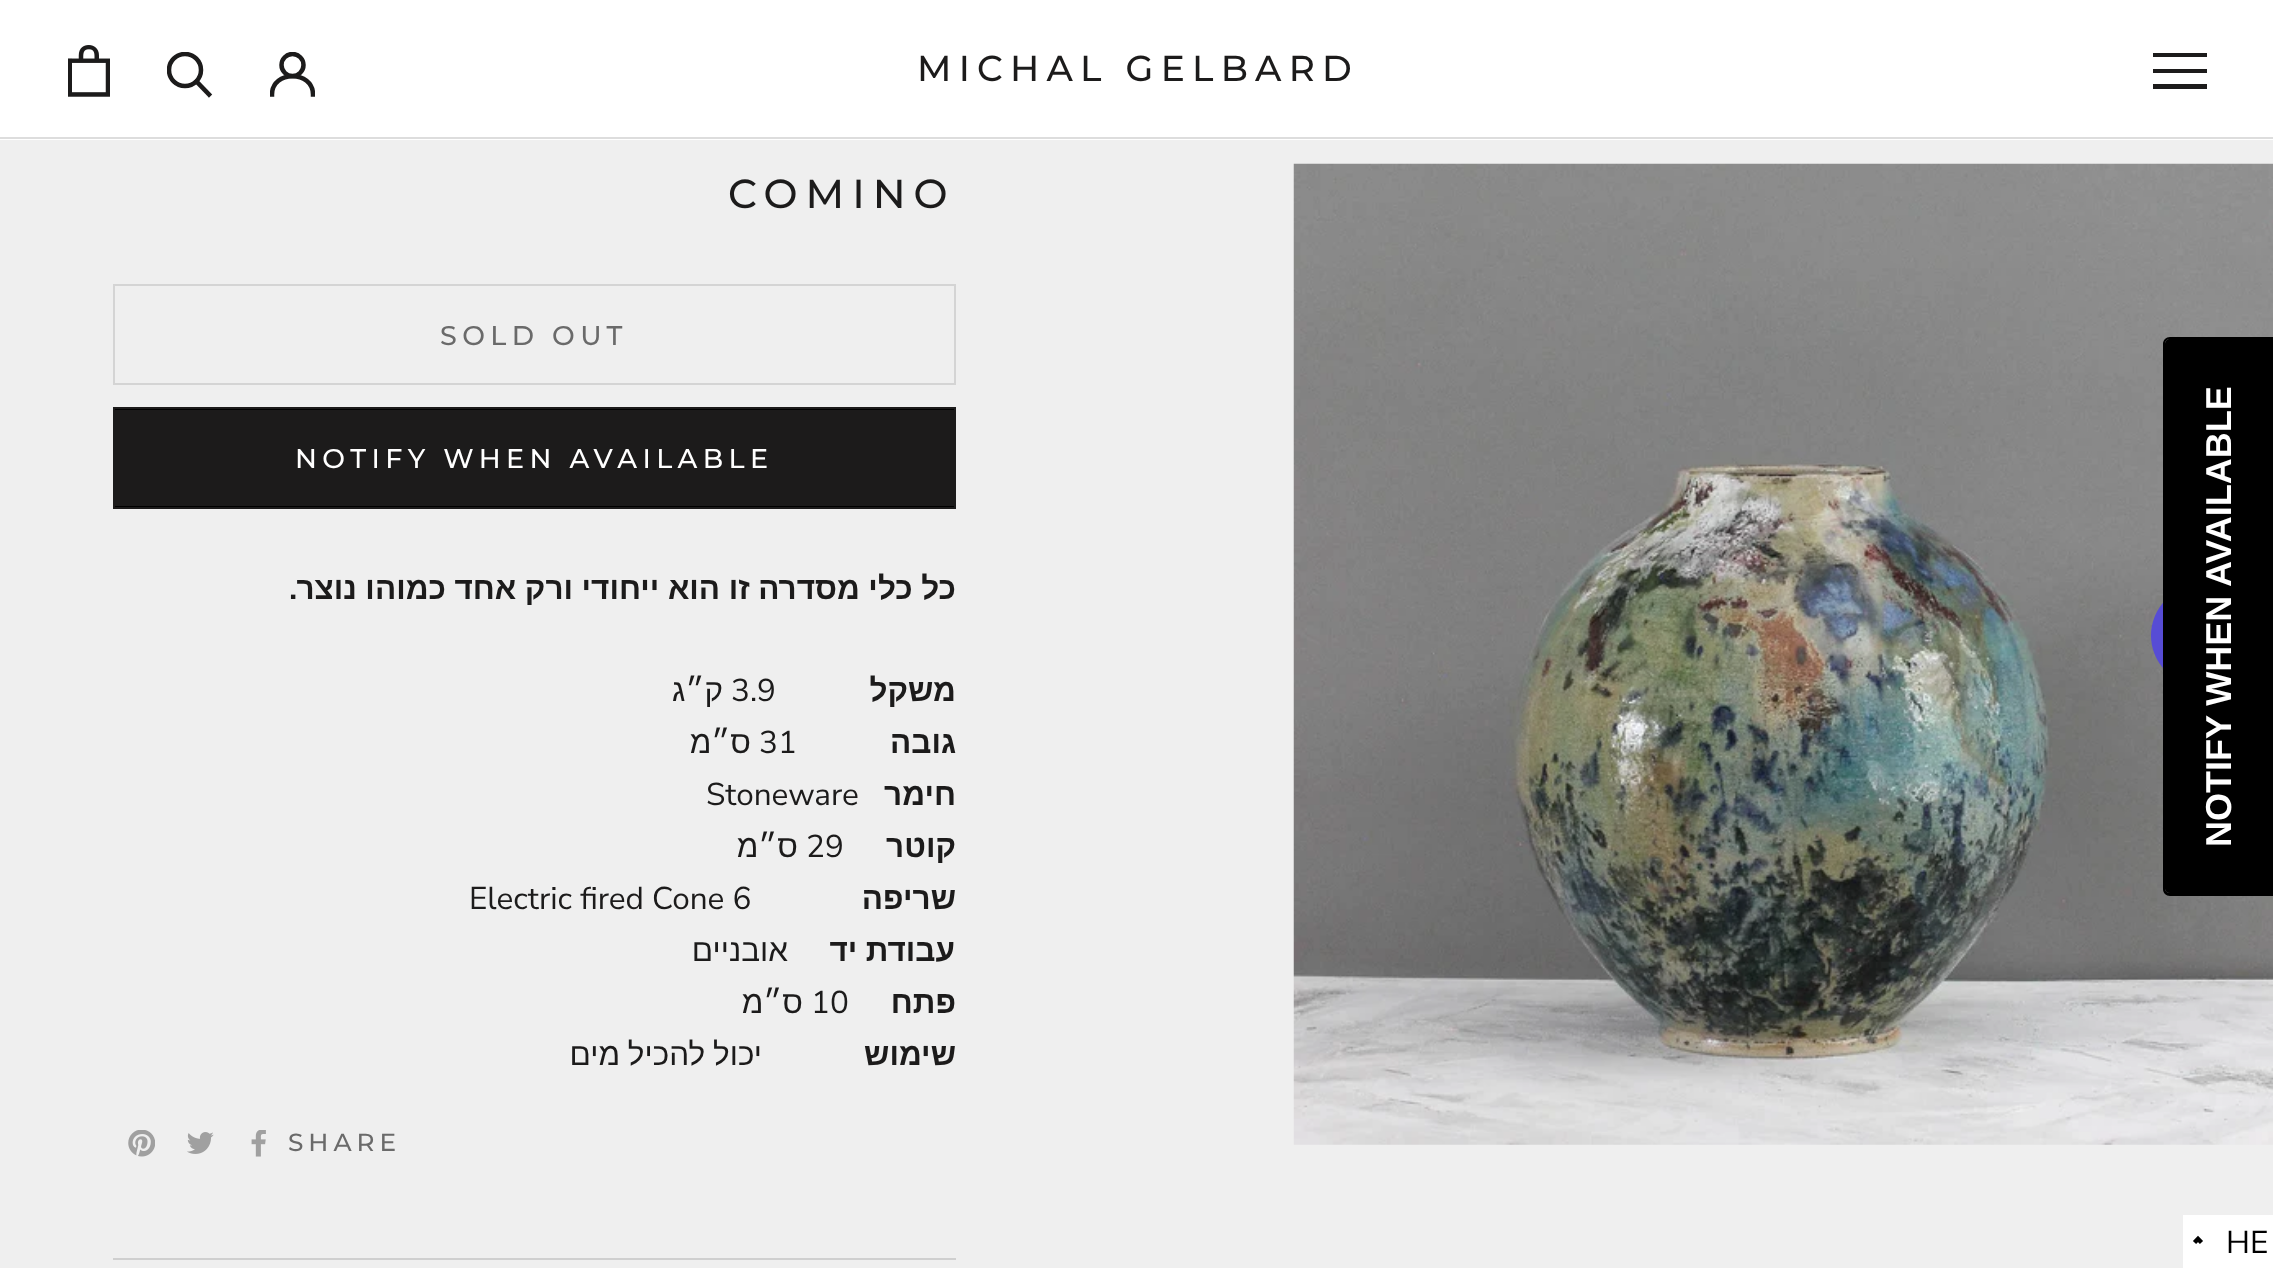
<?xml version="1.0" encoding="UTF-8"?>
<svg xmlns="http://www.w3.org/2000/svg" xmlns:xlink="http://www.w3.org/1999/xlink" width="2273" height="1268">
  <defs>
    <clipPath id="clip1"><rect x="167" y="52" width="47" height="47" /></clipPath>
    <clipPath id="clip2"><rect x="270" y="52" width="45" height="45" /></clipPath>
  </defs>
  <rect width="100%" height="100%" fill="#efefef" />
  <rect width="2273" height="140" fill="#ffffff" />
  <rect y="137" width="2273" height="2" fill="#dddddd" />
  <image x="68" y="45" width="42" height="52" xlink:href="image1.png" />
  <path d="M 209 94.5 l -12.5 -13" fill="none" stroke="#1c1b1b" stroke-width="4.5" stroke-linecap="square" />
  <g clip-path="url(#clip1)">
    <circle cx="185" cy="70" r="16" fill="none" stroke="#1c1b1b" stroke-width="4.5" />
  </g>
  <g clip-path="url(#clip2)">
    <path d="M 272 94.5 c 0 -24.5 41 -24.5 41 0" fill="none" stroke="#1c1b1b" stroke-width="4.5" stroke-linecap="square" />
    <circle cx="292.5" cy="65" r="11" fill="none" stroke="#1c1b1b" stroke-width="4.5" />
  </g>
  <path d="M 2153 89 v -5 h 54 v 5 z m 0 -20 h 54 v 4 h -54 z m 0 -16 h 54 v 4 h -54 z" fill="#1c1b1b" />
  <rect x="114" y="285" width="841" height="99" fill="none" stroke="#d4d4d4" stroke-width="2" />
  <rect x="114" y="408" width="841" height="100" fill="#000000" stroke="#1c1b1b" stroke-width="2" />
  <rect x="115" y="410" width="839" height="96" fill="#1c1b1b" />
  <image x="128" y="1130" width="27" height="27" xlink:href="image2.png" />
  <image x="187" y="1132" width="27" height="22" xlink:href="image3.png" />
  <image x="251" y="1130" width="15" height="27" xlink:href="image4.png" />
  <rect x="113" y="1258" width="843" height="2" fill="#cfcfcf" />
  <image x="1293" y="163" width="980" height="982" xlink:href="image5.png" />
  <circle cx="2201.5" cy="635.5" r="50.5" fill="#574cd5" />
  <path d="M 2165 889 v -545 c 0 -3 2 -5 5 -5 h 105 v 554 h -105 c -3 0 -5 -2 -5 -4 z" fill="#000000" />
  <path d="M 2163 889 v -545 c 0 -4 3 -7 7 -7 h 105 v 559 h -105 c -4 0 -7 -3 -7 -7 z m 2 0 v -545 c 0 -3 2 -5 5 -5 h 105 v 554 h -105 c -3 0 -5 -2 -5 -4 z" fill="#000000" fill-rule="evenodd" />
  <rect x="2183" y="1215" width="90" height="53" fill="#ffffff" />
  <path d="M 2201.5 1242.5 l -3.5 -3.5 l -3.5 3.5" fill="none" stroke="#000000" stroke-width="4.5" />
  <text x="917" y="81" style="font-family: Montserrat; font-size: 36px; font-weight: 500; letter-spacing: 7.25px; fill: #1c1b1b">MICHAL GELBARD</text>
  <text x="728" y="208" style="font-family: Montserrat; font-size: 40.5px; font-weight: 500; letter-spacing: 8px; fill: #1c1b1b">COMINO</text>
  <text x="440" y="345" style="font-family: Montserrat; font-size: 27px; font-weight: 500; letter-spacing: 5.4px; fill: #6a6a6a">SOLD OUT</text>
  <text x="295" y="468" style="font-family: Montserrat; font-size: 27px; font-weight: 500; letter-spacing: 5.4px; fill: #ffffff">NOTIFY WHEN AVAILABLE</text>
  <text x="297" y="599" style="font-family: Nunito Sans; font-size: 31.5px; font-weight: bold; direction: rtl; fill: #1c1b1b">.</text>
  <text x="956" y="599" word-spacing="-0.25" style="font-family: Liberation Sans; font-size: 31.5px; font-weight: bold; direction: rtl; fill: #1c1b1b">כל כלי מסדרה זו הוא ייחודי ורק אחד כמוהו נוצר</text>
  <text x="723" y="701" style="font-family: Liberation Sans; font-size: 31.5px; direction: rtl; fill: #1c1b1b">ק״ג</text>
  <text x="731" y="701" style="font-family: Nunito Sans; font-size: 31.5px; fill: #1c1b1b">3.9</text>
  <text x="956" y="701" style="font-family: Liberation Sans; font-size: 31.5px; font-weight: bold; direction: rtl; fill: #1c1b1b">משקל</text>
  <text x="751" y="753" style="font-family: Liberation Sans; font-size: 31.5px; direction: rtl; fill: #1c1b1b">ס״מ</text>
  <text x="759" y="753" style="font-family: Nunito Sans; font-size: 31.5px; fill: #1c1b1b">31</text>
  <text x="956" y="753" style="font-family: Liberation Sans; font-size: 31.5px; font-weight: bold; direction: rtl; fill: #1c1b1b">גובה</text>
  <text x="706" y="805" style="font-family: Nunito Sans; font-size: 31.5px; fill: #1c1b1b">Stoneware</text>
  <text x="956" y="805" style="font-family: Liberation Sans; font-size: 31.5px; font-weight: bold; direction: rtl; fill: #1c1b1b">חימר</text>
  <text x="798" y="857" style="font-family: Liberation Sans; font-size: 31.5px; direction: rtl; fill: #1c1b1b">ס״מ</text>
  <text x="806" y="857" style="font-family: Nunito Sans; font-size: 31.5px; fill: #1c1b1b">29</text>
  <text x="956" y="857" style="font-family: Liberation Sans; font-size: 31.5px; font-weight: bold; direction: rtl; fill: #1c1b1b">קוטר</text>
  <text x="469" y="909" style="font-family: Nunito Sans; font-size: 31.5px; fill: #1c1b1b">Electric fired Cone 6</text>
  <text x="956" y="909" style="font-family: Liberation Sans; font-size: 31.5px; font-weight: bold; direction: rtl; fill: #1c1b1b">שריפה</text>
  <text x="788" y="961" style="font-family: Liberation Sans; font-size: 31.5px; direction: rtl; fill: #1c1b1b">אובניים</text>
  <text x="955" y="961" word-spacing="-0.25" style="font-family: Liberation Sans; font-size: 31.5px; font-weight: bold; direction: rtl; fill: #1c1b1b">עבודת יד</text>
  <text x="803" y="1013" style="font-family: Liberation Sans; font-size: 31.5px; direction: rtl; fill: #1c1b1b">ס״מ</text>
  <text x="811" y="1013" style="font-family: Nunito Sans; font-size: 31.5px; fill: #1c1b1b">10</text>
  <text x="956" y="1013" style="font-family: Liberation Sans; font-size: 31.5px; font-weight: bold; direction: rtl; fill: #1c1b1b">פתח</text>
  <text x="762" y="1065" word-spacing="-1" style="font-family: Liberation Sans; font-size: 31.5px; direction: rtl; fill: #1c1b1b">יכול להכיל מים</text>
  <text x="956" y="1065" style="font-family: Liberation Sans; font-size: 31.5px; font-weight: bold; direction: rtl; fill: #1c1b1b">שימוש</text>
  <text x="288" y="1151" style="font-family: Montserrat; font-size: 24.75px; font-weight: 500; letter-spacing: 5px; fill: #6a6a6a">SHARE</text>
  <text x="2231" y="847" transform="rotate(-90 2231 847)" style="font-family: Liberation Sans; font-size: 36px; font-weight: bold; fill: #ffffff">NOTIFY WHEN AVAILABLE</text>
  <text x="2226" y="1253" style="font-family: Nunito Sans; font-size: 31.5px; fill: #000000">HE</text>
</svg>
